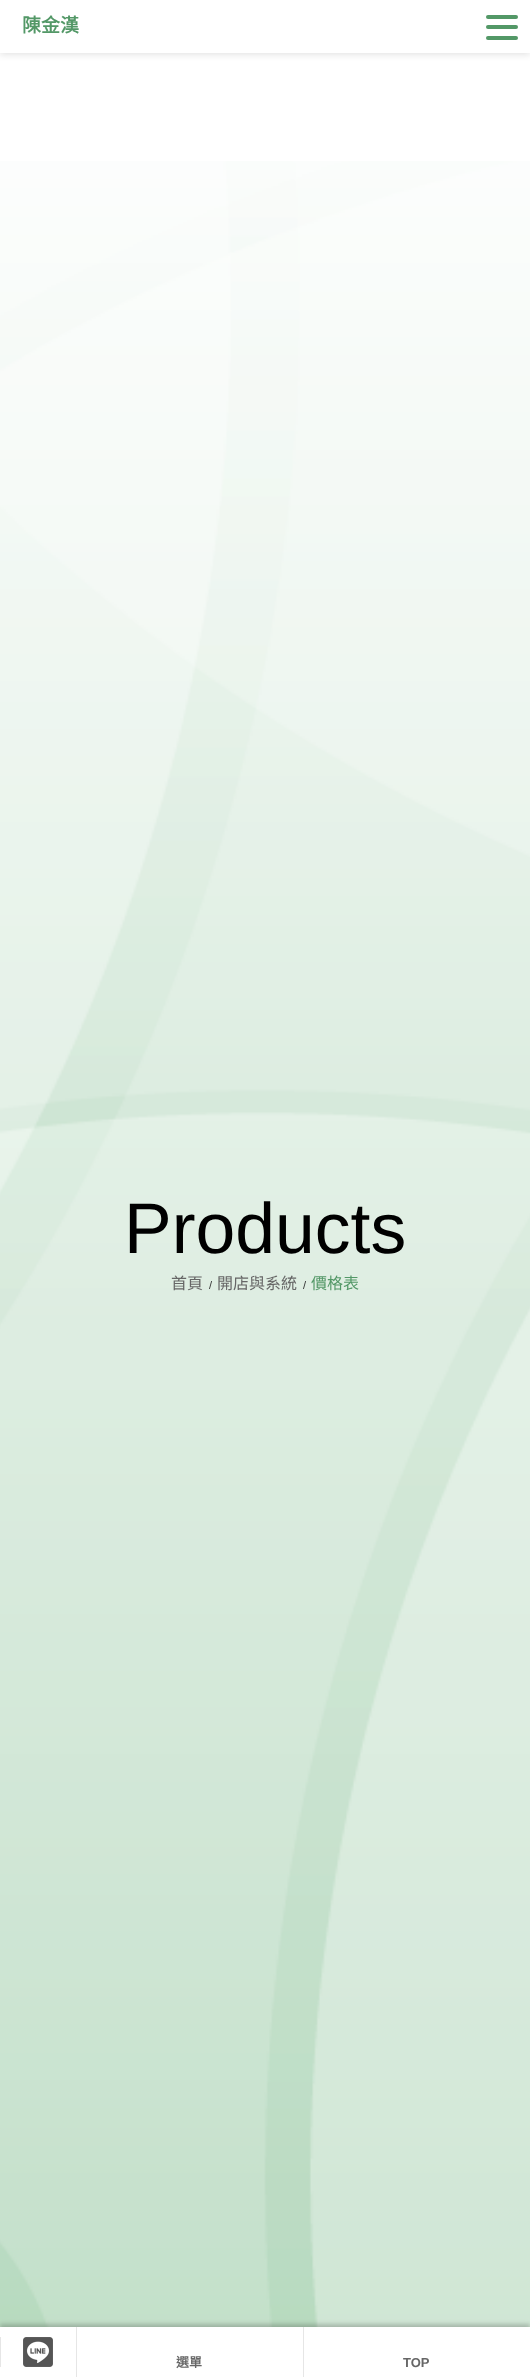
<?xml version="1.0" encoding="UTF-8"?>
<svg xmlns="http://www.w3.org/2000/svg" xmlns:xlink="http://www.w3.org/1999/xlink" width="530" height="2377">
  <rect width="100%" height="100%" fill="#ffffff" />
  <rect y="2" width="530" height="53" fill="#000000" fill-opacity="0.1" filter="blur(3px)" />
  <rect width="530" height="53" fill="#ffffff" />
  <rect x="486" y="15" width="32" height="4" rx="2" fill="#539867" />
  <rect x="486" y="25" width="32" height="4" rx="2" fill="#539867" />
  <rect x="486" y="36" width="32" height="4" rx="2" fill="#539867" />
  <image x="0" y="161" width="530" height="2166" xlink:href="image1.png" />
  <rect y="2324" width="530" height="50" fill="#000000" fill-opacity="0.2" filter="blur(2px)" />
  <rect y="2327" width="530" height="50" fill="#ffffff" />
  <rect y="2337" width="1" height="30" fill="#e6e6e6" />
  <image x="23" y="2337" width="30" height="30" xlink:href="image2.png" />
  <rect x="76" y="2327" width="1" height="50" fill="#e6e6e6" />
  <rect x="303" y="2327" width="1" height="50" fill="#e6e6e6" />
  <text x="22" y="32" style="font-family: Noto Sans CJK TC; font-size: 19px; font-weight: bold; fill: #539867">陳金漢</text>
  <text x="124" y="1253" style="font-family: Liberation Sans; font-size: 71.5px; fill: #000000">Products</text>
  <text x="171" y="1289" style="font-family: Noto Sans CJK TC; font-size: 16px; fill: #666666">首頁</text>
  <text x="209" y="1289" style="font-family: Liberation Sans; font-size: 11px; fill: #333333">/</text>
  <text x="217" y="1289" style="font-family: Noto Sans CJK TC; font-size: 16px; fill: #666666">開店與系統</text>
  <text x="303" y="1289" style="font-family: Liberation Sans; font-size: 11px; fill: #333333">/</text>
  <text x="311" y="1289" style="font-family: Noto Sans CJK TC; font-size: 16px; fill: #539867">價格表</text>
  <text x="176" y="2367" style="font-family: Noto Sans CJK TC; font-size: 13px; font-weight: bold; fill: #666666">選單</text>
  <text x="403" y="2367" style="font-family: Liberation Sans; font-size: 13px; font-weight: bold; fill: #666666">TOP</text>
</svg>
